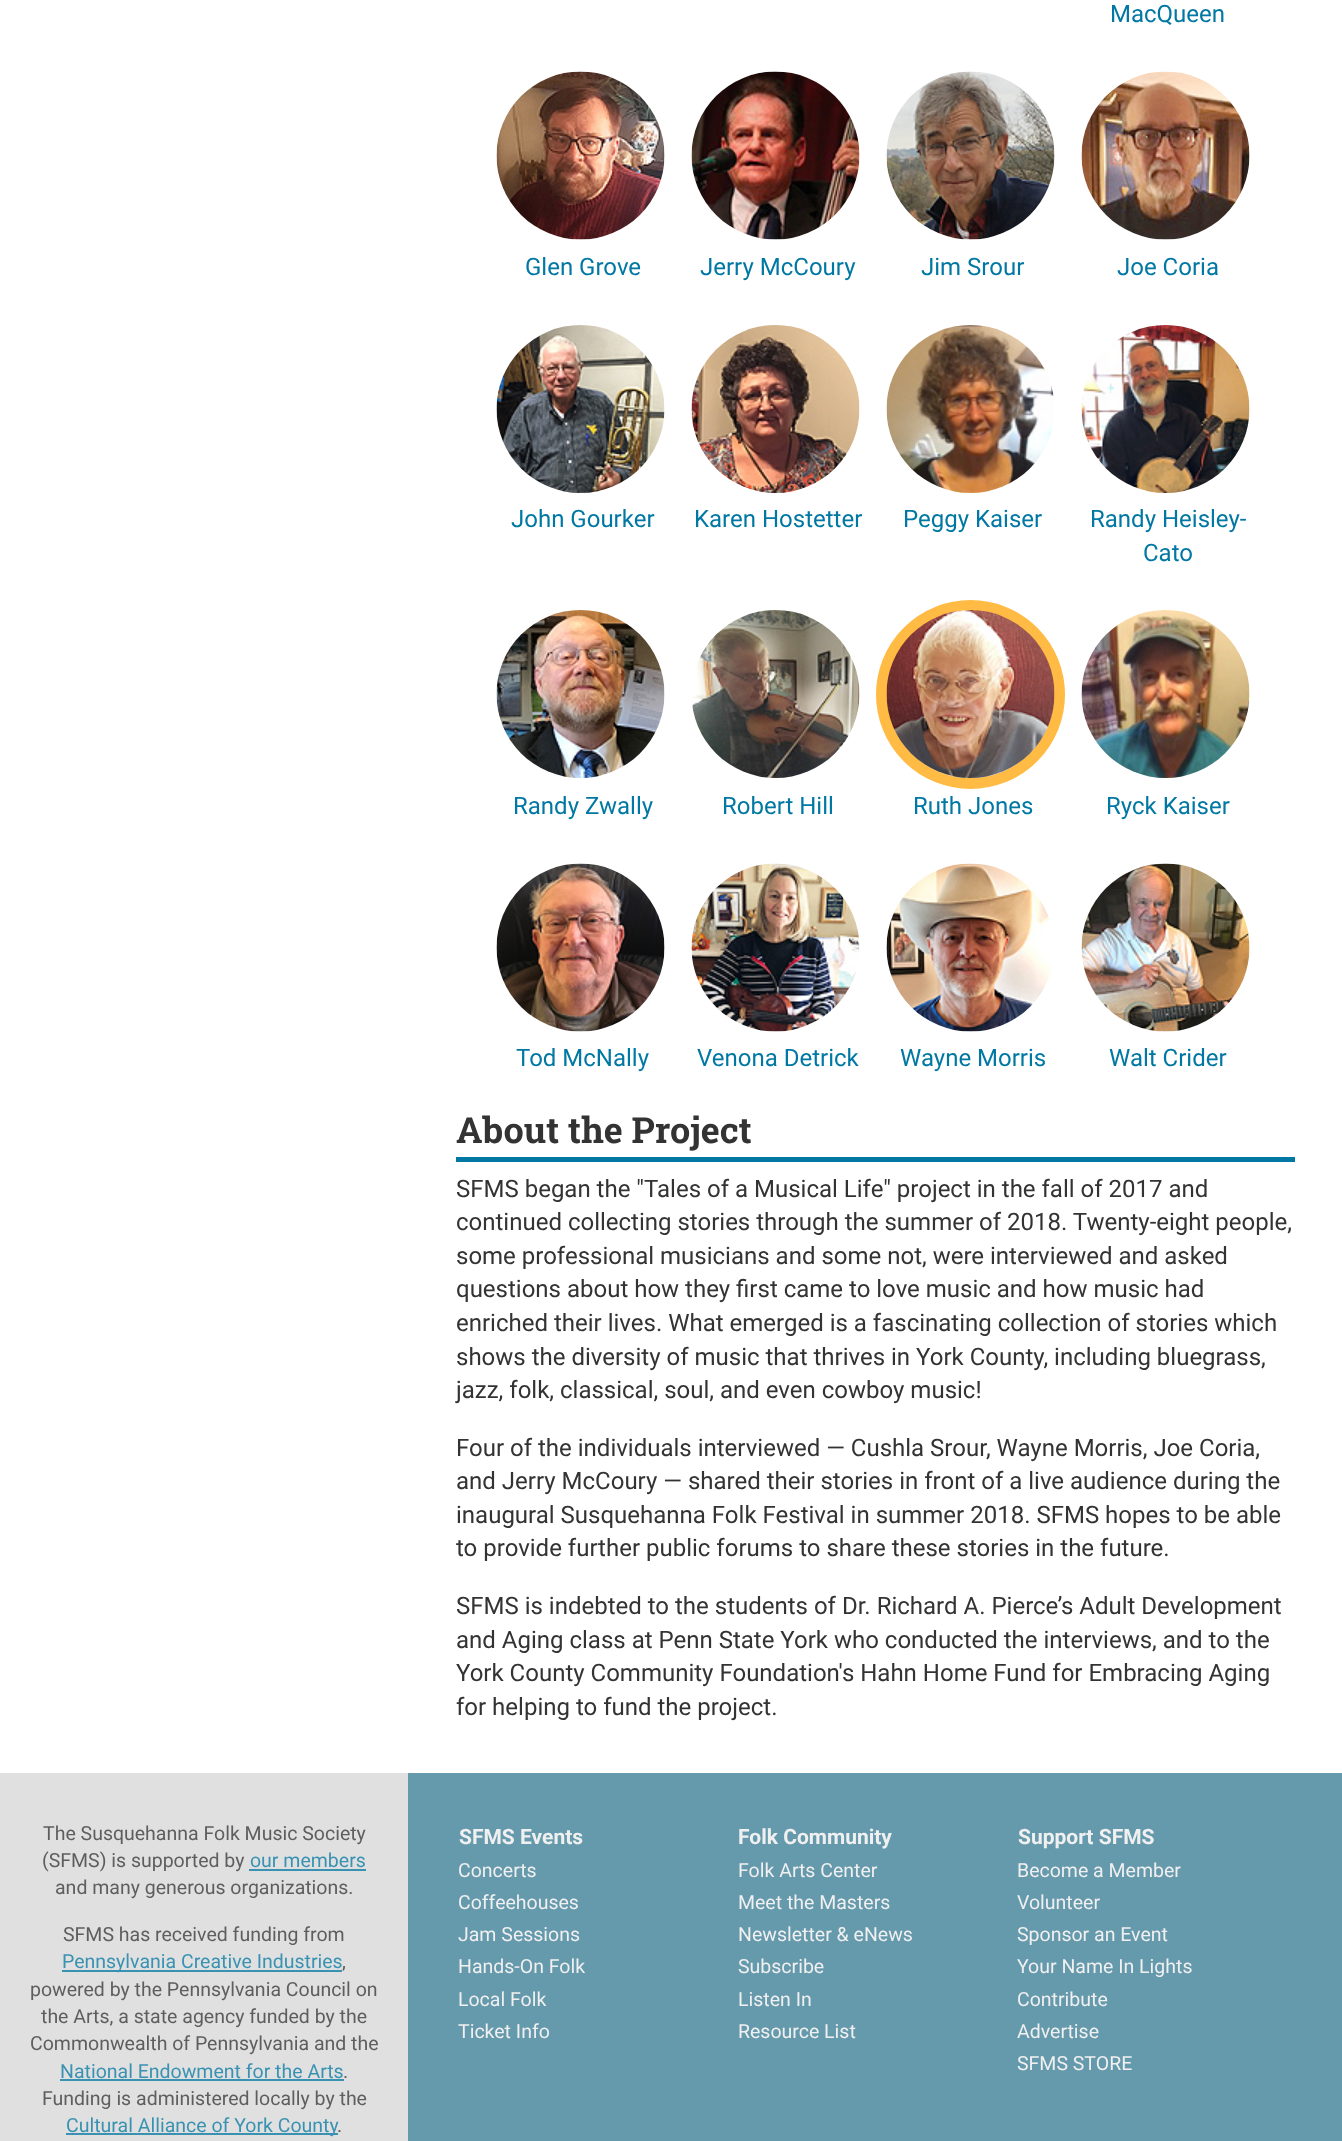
<?xml version="1.0" encoding="UTF-8"?>
<svg xmlns="http://www.w3.org/2000/svg" xmlns:xlink="http://www.w3.org/1999/xlink" width="1342" height="2141">
  <rect width="100%" height="100%" fill="#ffffff" />
  <image x="496" y="71" width="169" height="169" xlink:href="image1.png" />
  <image x="691" y="71" width="169" height="169" xlink:href="image2.png" />
  <image x="886" y="71" width="169" height="169" xlink:href="image3.png" />
  <image x="1081" y="71" width="169" height="169" xlink:href="image4.png" />
  <image x="496" y="325" width="169" height="168" xlink:href="image5.png" />
  <image x="691" y="325" width="169" height="168" xlink:href="image6.png" />
  <image x="886" y="325" width="168" height="168" xlink:href="image7.png" />
  <image x="1081" y="325" width="169" height="168" xlink:href="image8.png" />
  <image x="496" y="610" width="169" height="168" xlink:href="image9.png" />
  <image x="692" y="610" width="168" height="168" xlink:href="image10.png" />
  <circle cx="970.5" cy="694.5" r="89" fill="none" stroke="#ffbb44" stroke-width="11" />
  <image x="886" y="610" width="169" height="168" xlink:href="image11.png" />
  <image x="1081" y="610" width="169" height="168" xlink:href="image12.png" />
  <image x="496" y="863" width="169" height="169" xlink:href="image13.png" />
  <image x="691" y="863" width="169" height="169" xlink:href="image14.png" />
  <image x="886" y="863" width="166" height="169" xlink:href="image15.png" />
  <image x="1081" y="863" width="169" height="169" xlink:href="image16.png" />
  <rect x="456" y="1157" width="839" height="5" fill="#0178a3" />
  <rect y="1773" width="408" height="368" fill="#e0e0e0" />
  <rect x="249" y="1869" width="117" height="2" fill="#3992b2" />
  <rect x="62" y="1970" width="280" height="2" fill="#3992b2" />
  <rect x="60" y="2079" width="284" height="2" fill="#3992b2" />
  <rect x="66" y="2133" width="272" height="2" fill="#3992b2" />
  <rect x="408" y="1773" width="934" height="368" fill="#6599ac" />
  <text x="1110" y="22" style="font-family: Roboto; font-size: 24px; fill: #0178a3">MacQueen</text>
  <text x="525" y="275" style="font-family: Roboto; font-size: 24px; fill: #0178a3">Glen Grove</text>
  <text x="700" y="275" style="font-family: Roboto; font-size: 24px; fill: #0178a3">Jerry McCoury</text>
  <text x="921" y="275" style="font-family: Roboto; font-size: 24px; fill: #0178a3">Jim Srour</text>
  <text x="1117" y="275" style="font-family: Roboto; font-size: 24px; fill: #0178a3">Joe Coria</text>
  <text x="511" y="527" style="font-family: Roboto; font-size: 24px; fill: #0178a3">John Gourker</text>
  <text x="694" y="527" style="font-family: Roboto; font-size: 24px; fill: #0178a3">Karen Hostetter</text>
  <text x="903" y="527" style="font-family: Roboto; font-size: 24px; fill: #0178a3">Peggy Kaiser</text>
  <text x="1090" y="527" style="font-family: Roboto; font-size: 24px; fill: #0178a3">Randy Heisley-</text>
  <text x="1143" y="561" style="font-family: Roboto; font-size: 24px; fill: #0178a3">Cato</text>
  <text x="513" y="814" style="font-family: Roboto; font-size: 24px; fill: #0178a3">Randy Zwally</text>
  <text x="722" y="814" style="font-family: Roboto; font-size: 24px; fill: #0178a3">Robert Hill</text>
  <text x="913" y="814" style="font-family: Roboto; font-size: 24px; fill: #0178a3">Ruth Jones</text>
  <text x="1106" y="814" style="font-family: Roboto; font-size: 24px; fill: #0178a3">Ryck Kaiser</text>
  <text x="516" y="1066" style="font-family: Roboto; font-size: 24px; fill: #0178a3">Tod McNally</text>
  <text x="697" y="1066" style="font-family: Roboto; font-size: 24px; fill: #0178a3">Venona Detrick</text>
  <text x="900" y="1066" style="font-family: Roboto; font-size: 24px; fill: #0178a3">Wayne Morris</text>
  <text x="1109" y="1066" style="font-family: Roboto; font-size: 24px; fill: #0178a3">Walt Crider</text>
  <text x="456" y="1143" style="font-family: Roboto Slab; font-size: 36px; font-weight: bold; fill: #333333">About the Project</text>
  <text x="456" y="1197" style="font-family: Roboto; font-size: 24px; fill: #333333">SFMS began the "Tales of a Musical Life" project in the fall of 2017 and</text>
  <text x="456" y="1230" style="font-family: Roboto; font-size: 24px; fill: #333333">continued collecting stories through the summer of 2018. Twenty-eight people,</text>
  <text x="456" y="1264" style="font-family: Roboto; font-size: 24px; fill: #333333">some professional musicians and some not, were interviewed and asked</text>
  <text x="456" y="1297" style="font-family: Roboto; font-size: 24px; fill: #333333">questions about how they first came to love music and how music had</text>
  <text x="456" y="1331" style="font-family: Roboto; font-size: 24px; fill: #333333">enriched their lives. What emerged is a fascinating collection of stories which</text>
  <text x="456" y="1365" style="font-family: Roboto; font-size: 24px; fill: #333333">shows the diversity of music that thrives in York County, including bluegrass,</text>
  <text x="456" y="1398" style="font-family: Roboto; font-size: 24px; fill: #333333">jazz, folk, classical, soul, and even cowboy music!</text>
  <text x="456" y="1456" style="font-family: Roboto; font-size: 24px; fill: #333333">Four of the individuals interviewed — Cushla Srour, Wayne Morris, Joe Coria,</text>
  <text x="456" y="1489" style="font-family: Roboto; font-size: 24px; fill: #333333">and Jerry McCoury — shared their stories in front of a live audience during the</text>
  <text x="456" y="1523" style="font-family: Roboto; font-size: 24px; fill: #333333">inaugural Susquehanna Folk Festival in summer 2018. SFMS hopes to be able</text>
  <text x="456" y="1556" style="font-family: Roboto; font-size: 24px; fill: #333333">to provide further public forums to share these stories in the future.</text>
  <text x="456" y="1614" style="font-family: Roboto; font-size: 24px; fill: #333333">SFMS is indebted to the students of Dr. Richard A. Pierce’s Adult Development</text>
  <text x="456" y="1648" style="font-family: Roboto; font-size: 24px; fill: #333333">and Aging class at Penn State York who conducted the interviews, and to the</text>
  <text x="456" y="1681" style="font-family: Roboto; font-size: 24px; fill: #333333">York County Community Foundation's Hahn Home Fund for Embracing Aging</text>
  <text x="456" y="1715" style="font-family: Roboto; font-size: 24px; fill: #333333">for helping to fund the project.</text>
  <text x="43" y="1840" style="font-family: Roboto; font-size: 19.5px; fill: #5e5e5e">The Susquehanna Folk Music Society</text>
  <text x="42" y="1867" style="font-family: Roboto; font-size: 19.5px; fill: #5e5e5e">(SFMS) is supported by</text>
  <text x="250" y="1867" style="font-family: Roboto; font-size: 19.5px; fill: #3992b2">our members</text>
  <text x="55" y="1894" style="font-family: Roboto; font-size: 19.5px; fill: #5e5e5e">and many generous organizations.</text>
  <text x="63" y="1941" style="font-family: Roboto; font-size: 19.5px; fill: #5e5e5e">SFMS has received funding from</text>
  <text x="62" y="1968" style="font-family: Roboto; font-size: 19.5px; fill: #3992b2">Pennsylvania Creative Industries</text>
  <text x="342" y="1968" style="font-family: Roboto; font-size: 19.5px; fill: #5e5e5e">,</text>
  <text x="30" y="1996" style="font-family: Roboto; font-size: 19.5px; fill: #5e5e5e">powered by the Pennsylvania Council on</text>
  <text x="41" y="2023" style="font-family: Roboto; font-size: 19.5px; fill: #5e5e5e">the Arts, a state agency funded by the</text>
  <text x="30" y="2050" style="font-family: Roboto; font-size: 19.5px; fill: #5e5e5e">Commonwealth of Pennsylvania and the</text>
  <text x="60" y="2078" style="font-family: Roboto; font-size: 19.5px; fill: #3992b2">National Endowment for the Arts</text>
  <text x="343" y="2078" style="font-family: Roboto; font-size: 19.5px; fill: #5e5e5e">.</text>
  <text x="42" y="2105" style="font-family: Roboto; font-size: 19.5px; fill: #5e5e5e">Funding is administered locally by the</text>
  <text x="66" y="2132" style="font-family: Roboto; font-size: 19.5px; fill: #3992b2">Cultural Alliance of York County</text>
  <text x="337" y="2132" style="font-family: Roboto; font-size: 19.5px; fill: #5e5e5e">.</text>
  <text x="459" y="1844" style="font-family: Roboto; font-size: 21px; font-weight: bold; fill: #f0f0f0">SFMS Events</text>
  <text x="458" y="1877" style="font-family: Roboto; font-size: 19.5px; fill: #f0f0f0">Concerts</text>
  <text x="458" y="1909" style="font-family: Roboto; font-size: 19.5px; fill: #f0f0f0">Coffeehouses</text>
  <text x="458" y="1941" style="font-family: Roboto; font-size: 19.5px; fill: #f0f0f0">Jam Sessions</text>
  <text x="458" y="1973" style="font-family: Roboto; font-size: 19.5px; fill: #f0f0f0">Hands-On Folk</text>
  <text x="458" y="2006" style="font-family: Roboto; font-size: 19.5px; fill: #f0f0f0">Local Folk</text>
  <text x="458" y="2038" style="font-family: Roboto; font-size: 19.5px; fill: #f0f0f0">Ticket Info</text>
  <text x="738" y="1844" style="font-family: Roboto; font-size: 21px; font-weight: bold; fill: #f0f0f0">Folk Community</text>
  <text x="738" y="1877" style="font-family: Roboto; font-size: 19.5px; fill: #f0f0f0">Folk Arts Center</text>
  <text x="738" y="1909" style="font-family: Roboto; font-size: 19.5px; fill: #f0f0f0">Meet the Masters</text>
  <text x="738" y="1941" style="font-family: Roboto; font-size: 19.5px; fill: #f0f0f0">Newsletter &amp; eNews</text>
  <text x="738" y="1973" style="font-family: Roboto; font-size: 19.5px; fill: #f0f0f0">Subscribe</text>
  <text x="738" y="2006" style="font-family: Roboto; font-size: 19.5px; fill: #f0f0f0">Listen In</text>
  <text x="738" y="2038" style="font-family: Roboto; font-size: 19.5px; fill: #f0f0f0">Resource List</text>
  <text x="1018" y="1844" style="font-family: Roboto; font-size: 21px; font-weight: bold; fill: #f0f0f0">Support SFMS</text>
  <text x="1017" y="1877" style="font-family: Roboto; font-size: 19.5px; fill: #f0f0f0">Become a Member</text>
  <text x="1017" y="1909" style="font-family: Roboto; font-size: 19.5px; fill: #f0f0f0">Volunteer</text>
  <text x="1017" y="1941" style="font-family: Roboto; font-size: 19.5px; fill: #f0f0f0">Sponsor an Event</text>
  <text x="1017" y="1973" style="font-family: Roboto; font-size: 19.5px; fill: #f0f0f0">Your Name In Lights</text>
  <text x="1017" y="2006" style="font-family: Roboto; font-size: 19.5px; fill: #f0f0f0">Contribute</text>
  <text x="1017" y="2038" style="font-family: Roboto; font-size: 19.5px; fill: #f0f0f0">Advertise</text>
  <text x="1017" y="2070" style="font-family: Roboto; font-size: 19.5px; fill: #f0f0f0">SFMS STORE</text>
</svg>
